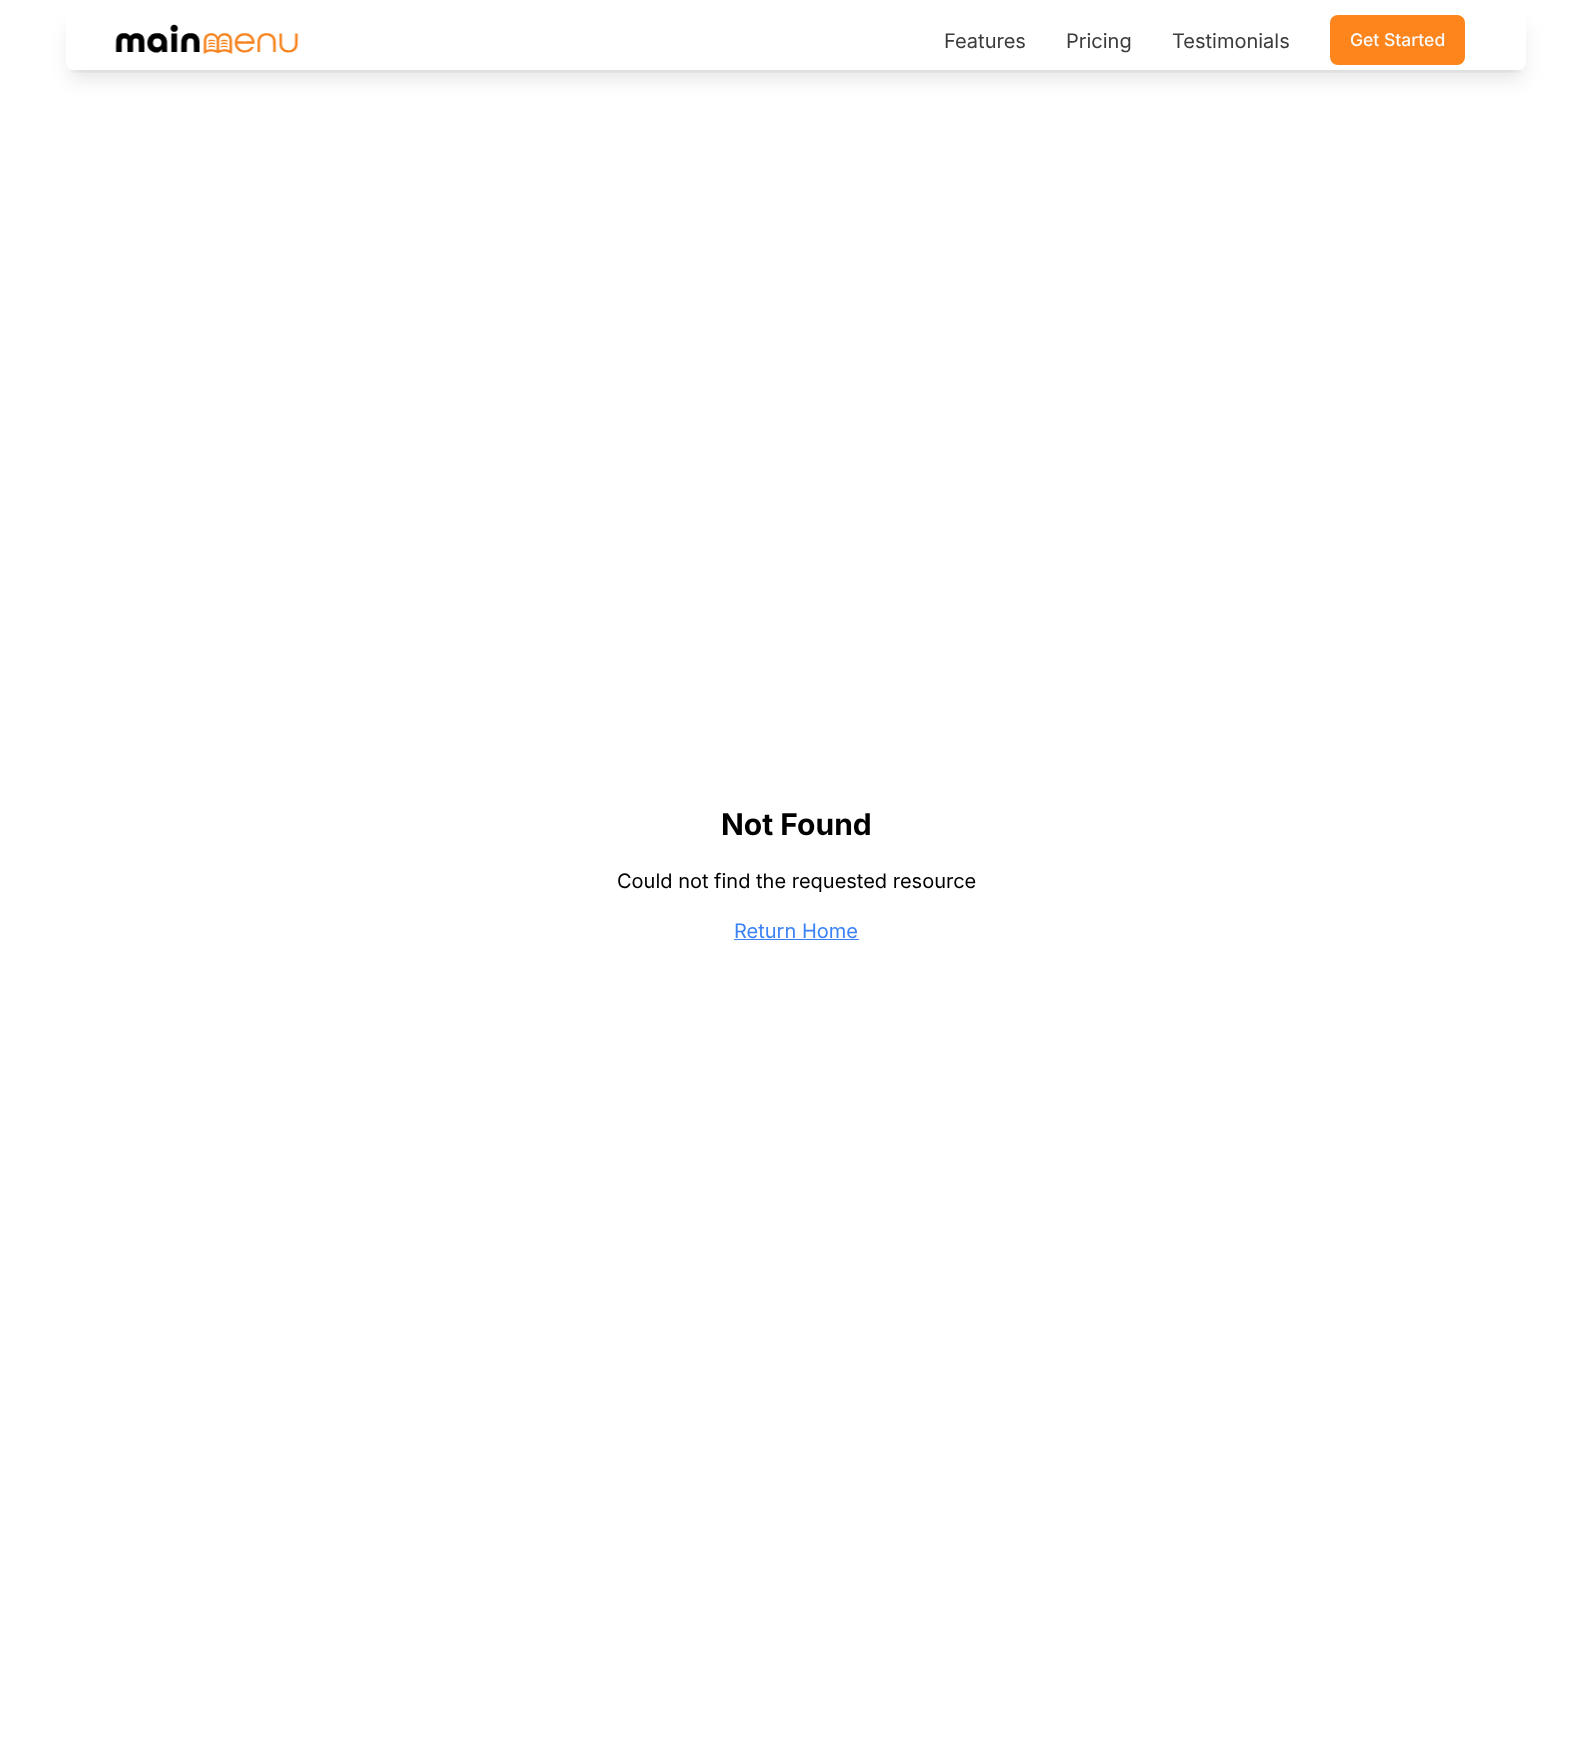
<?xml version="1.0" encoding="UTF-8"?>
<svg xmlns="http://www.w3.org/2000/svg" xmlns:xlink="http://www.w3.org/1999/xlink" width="1592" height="1750">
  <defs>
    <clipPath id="clip1"><rect x="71" y="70" width="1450" height="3" /></clipPath>
    <clipPath id="clip2"><path d="M 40 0 h 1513 v 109 h -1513 z m 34 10 h 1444 c 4.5 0 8 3.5 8 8 v 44 c 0 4.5 -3.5 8 -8 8 h -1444 c -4.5 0 -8 -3.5 -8 -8 v -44 c 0 -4.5 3.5 -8 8 -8 z" clip-rule="evenodd" /></clipPath>
  </defs>
  <rect width="100%" height="100%" fill="#ffffff" />
  <g clip-path="url(#clip1)">
    <rect x="71" y="20" width="1450" height="50" rx="2.5" fill="#000000" fill-opacity="0.1" filter="blur(4px)" />
  </g>
  <g clip-path="url(#clip2)">
    <rect x="70" y="26" width="1453" height="53" rx="4" fill="#000000" fill-opacity="0.1" filter="blur(9.5px)" />
  </g>
  <image x="115" y="24" width="184" height="30" xlink:href="image1.png" />
  <rect x="1330" y="15" width="135" height="50" rx="8" fill="#fd851c" />
  <rect x="734" y="939" width="125" height="1" fill="#3b82f6" />
  <text x="944" y="48" style="font-family: Inter; font-size: 20px; fill: #3b3b3b">Features</text>
  <text x="1066" y="48" style="font-family: Inter; font-size: 20px; fill: #3b3b3b">Pricing</text>
  <text x="1172" y="48" style="font-family: Inter; font-size: 20px; fill: #3b3b3b">Testimonials</text>
  <text x="1350" y="46" style="font-family: Inter; font-size: 17.5px; font-weight: 500; fill: #fafafa">Get Started</text>
  <text x="721" y="835" style="font-family: Inter; font-size: 30px; font-weight: bold; fill: #000000">Not Found</text>
  <text x="617" y="888" style="font-family: Inter; font-size: 20px; fill: #000000">Could not find the requested resource</text>
  <text x="734" y="938" style="font-family: Inter; font-size: 20px; fill: #3b82f6">Return Home</text>
</svg>
